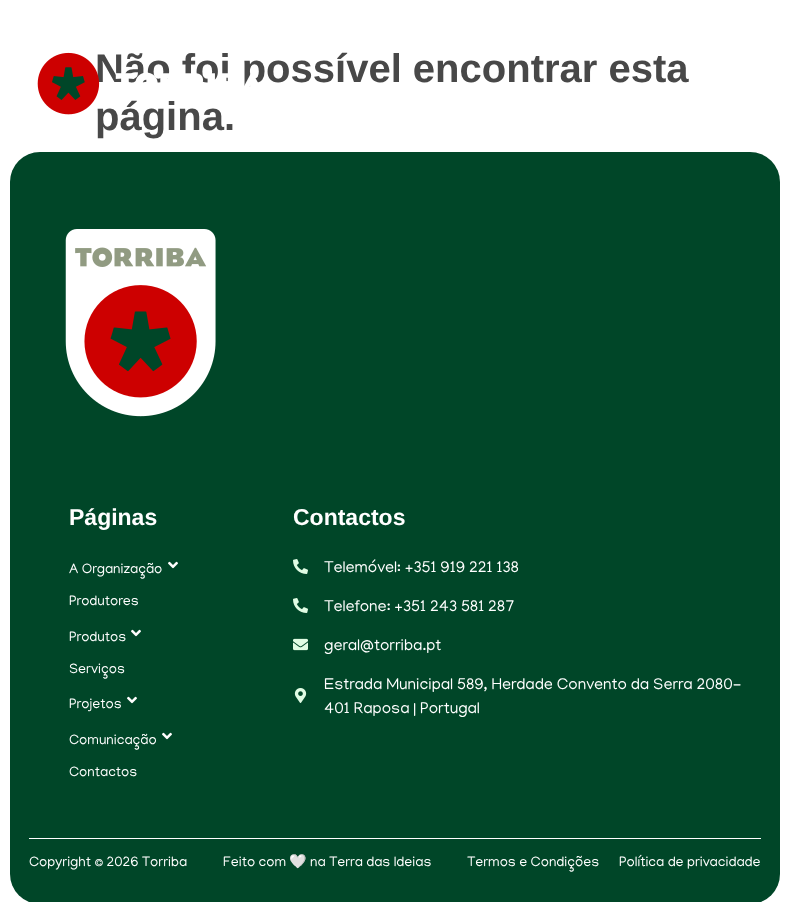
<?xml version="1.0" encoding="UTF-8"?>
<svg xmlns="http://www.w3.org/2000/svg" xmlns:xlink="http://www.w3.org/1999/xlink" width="790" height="902">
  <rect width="100%" height="100%" fill="#ffffff" />
  <rect x="10" y="152" width="770" height="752" rx="30" fill="#004628" />
  <image x="65" y="229" width="151" height="188" xlink:href="image2.png" />
  <image x="168" y="561" width="10" height="8" xlink:href="image3.png" />
  <image x="131" y="629" width="10" height="8" xlink:href="image3.png" />
  <image x="127" y="696" width="10" height="8" xlink:href="image3.png" />
  <image x="162" y="732" width="10" height="8" xlink:href="image3.png" />
  <image x="293" y="559" width="15" height="15" xlink:href="image4.png" />
  <image x="293" y="598" width="15" height="15" xlink:href="image4.png" />
  <image x="293" y="638" width="15" height="13" xlink:href="image5.png" />
  <image x="294" y="688" width="13" height="15" xlink:href="image6.png" />
  <rect x="29" y="838" width="732" height="1" fill="#ffffff" />
  <text x="95" y="82" style="font-family: Liberation Sans; font-size: 40px; font-weight: bold; fill: #484848">Não foi possível encontrar esta</text>
  <text x="95" y="130" style="font-family: Liberation Sans; font-size: 40px; font-weight: bold; fill: #484848">página.</text>
  <image x="37" y="52" width="221" height="63" xlink:href="image1.png" />
  <text x="69" y="525" style="font-family: Liberation Sans; font-size: 23px; font-weight: bold; fill: #ffffff">Páginas</text>
  <text x="69" y="573" style="font-family: Manjari; font-size: 14px; fill: #ffffff">A Organização</text>
  <text x="69" y="605" style="font-family: Manjari; font-size: 14px; fill: #ffffff">Produtores</text>
  <text x="69" y="641" style="font-family: Manjari; font-size: 14px; fill: #ffffff">Produtos</text>
  <text x="69" y="673" style="font-family: Manjari; font-size: 14px; fill: #ffffff">Serviços</text>
  <text x="69" y="708" style="font-family: Manjari; font-size: 14px; fill: #ffffff">Projetos</text>
  <text x="69" y="744" style="font-family: Manjari; font-size: 14px; fill: #ffffff">Comunicação</text>
  <text x="69" y="776" style="font-family: Manjari; font-size: 14px; fill: #ffffff">Contactos</text>
  <text x="293" y="525" style="font-family: Liberation Sans; font-size: 23px; font-weight: bold; fill: #ffffff">Contactos</text>
  <text x="324" y="572" style="font-family: Manjari; font-size: 16px; fill: #ffffff">Telemóvel: +351 919 221 138</text>
  <text x="324" y="611" style="font-family: Manjari; font-size: 16px; fill: #ffffff">Telefone: +351 243 581 287</text>
  <text x="324" y="650" style="font-family: Manjari; font-size: 16px; fill: #ffffff">geral@torriba.pt</text>
  <text x="324" y="689" style="font-family: Manjari; font-size: 16px; fill: #ffffff">Estrada Municipal 589, Herdade Convento da Serra 2080-</text>
  <text x="324" y="713" style="font-family: Manjari; font-size: 16px; fill: #ffffff">401 Raposa | Portugal</text>
  <text x="29" y="866" style="font-family: Manjari; font-size: 14px; fill: #ffffff">Copyright © 2026 Torriba</text>
  <text x="223" y="866" style="font-family: Manjari; font-size: 14px; fill: #ffffff">Feito com</text>
  <text x="289" y="866" style="font-family: Noto Color Emoji; font-size: 14px; fill: #ffffff">🤍</text>
  <text x="310" y="866" style="font-family: Manjari; font-size: 14px; fill: #ffffff">na Terra das Ideias</text>
  <text x="467" y="866" style="font-family: Manjari; font-size: 14px; fill: #ffffff">Termos e Condições</text>
  <text x="619" y="866" style="font-family: Manjari; font-size: 14px; fill: #ffffff">Política de privacidade</text>
</svg>
